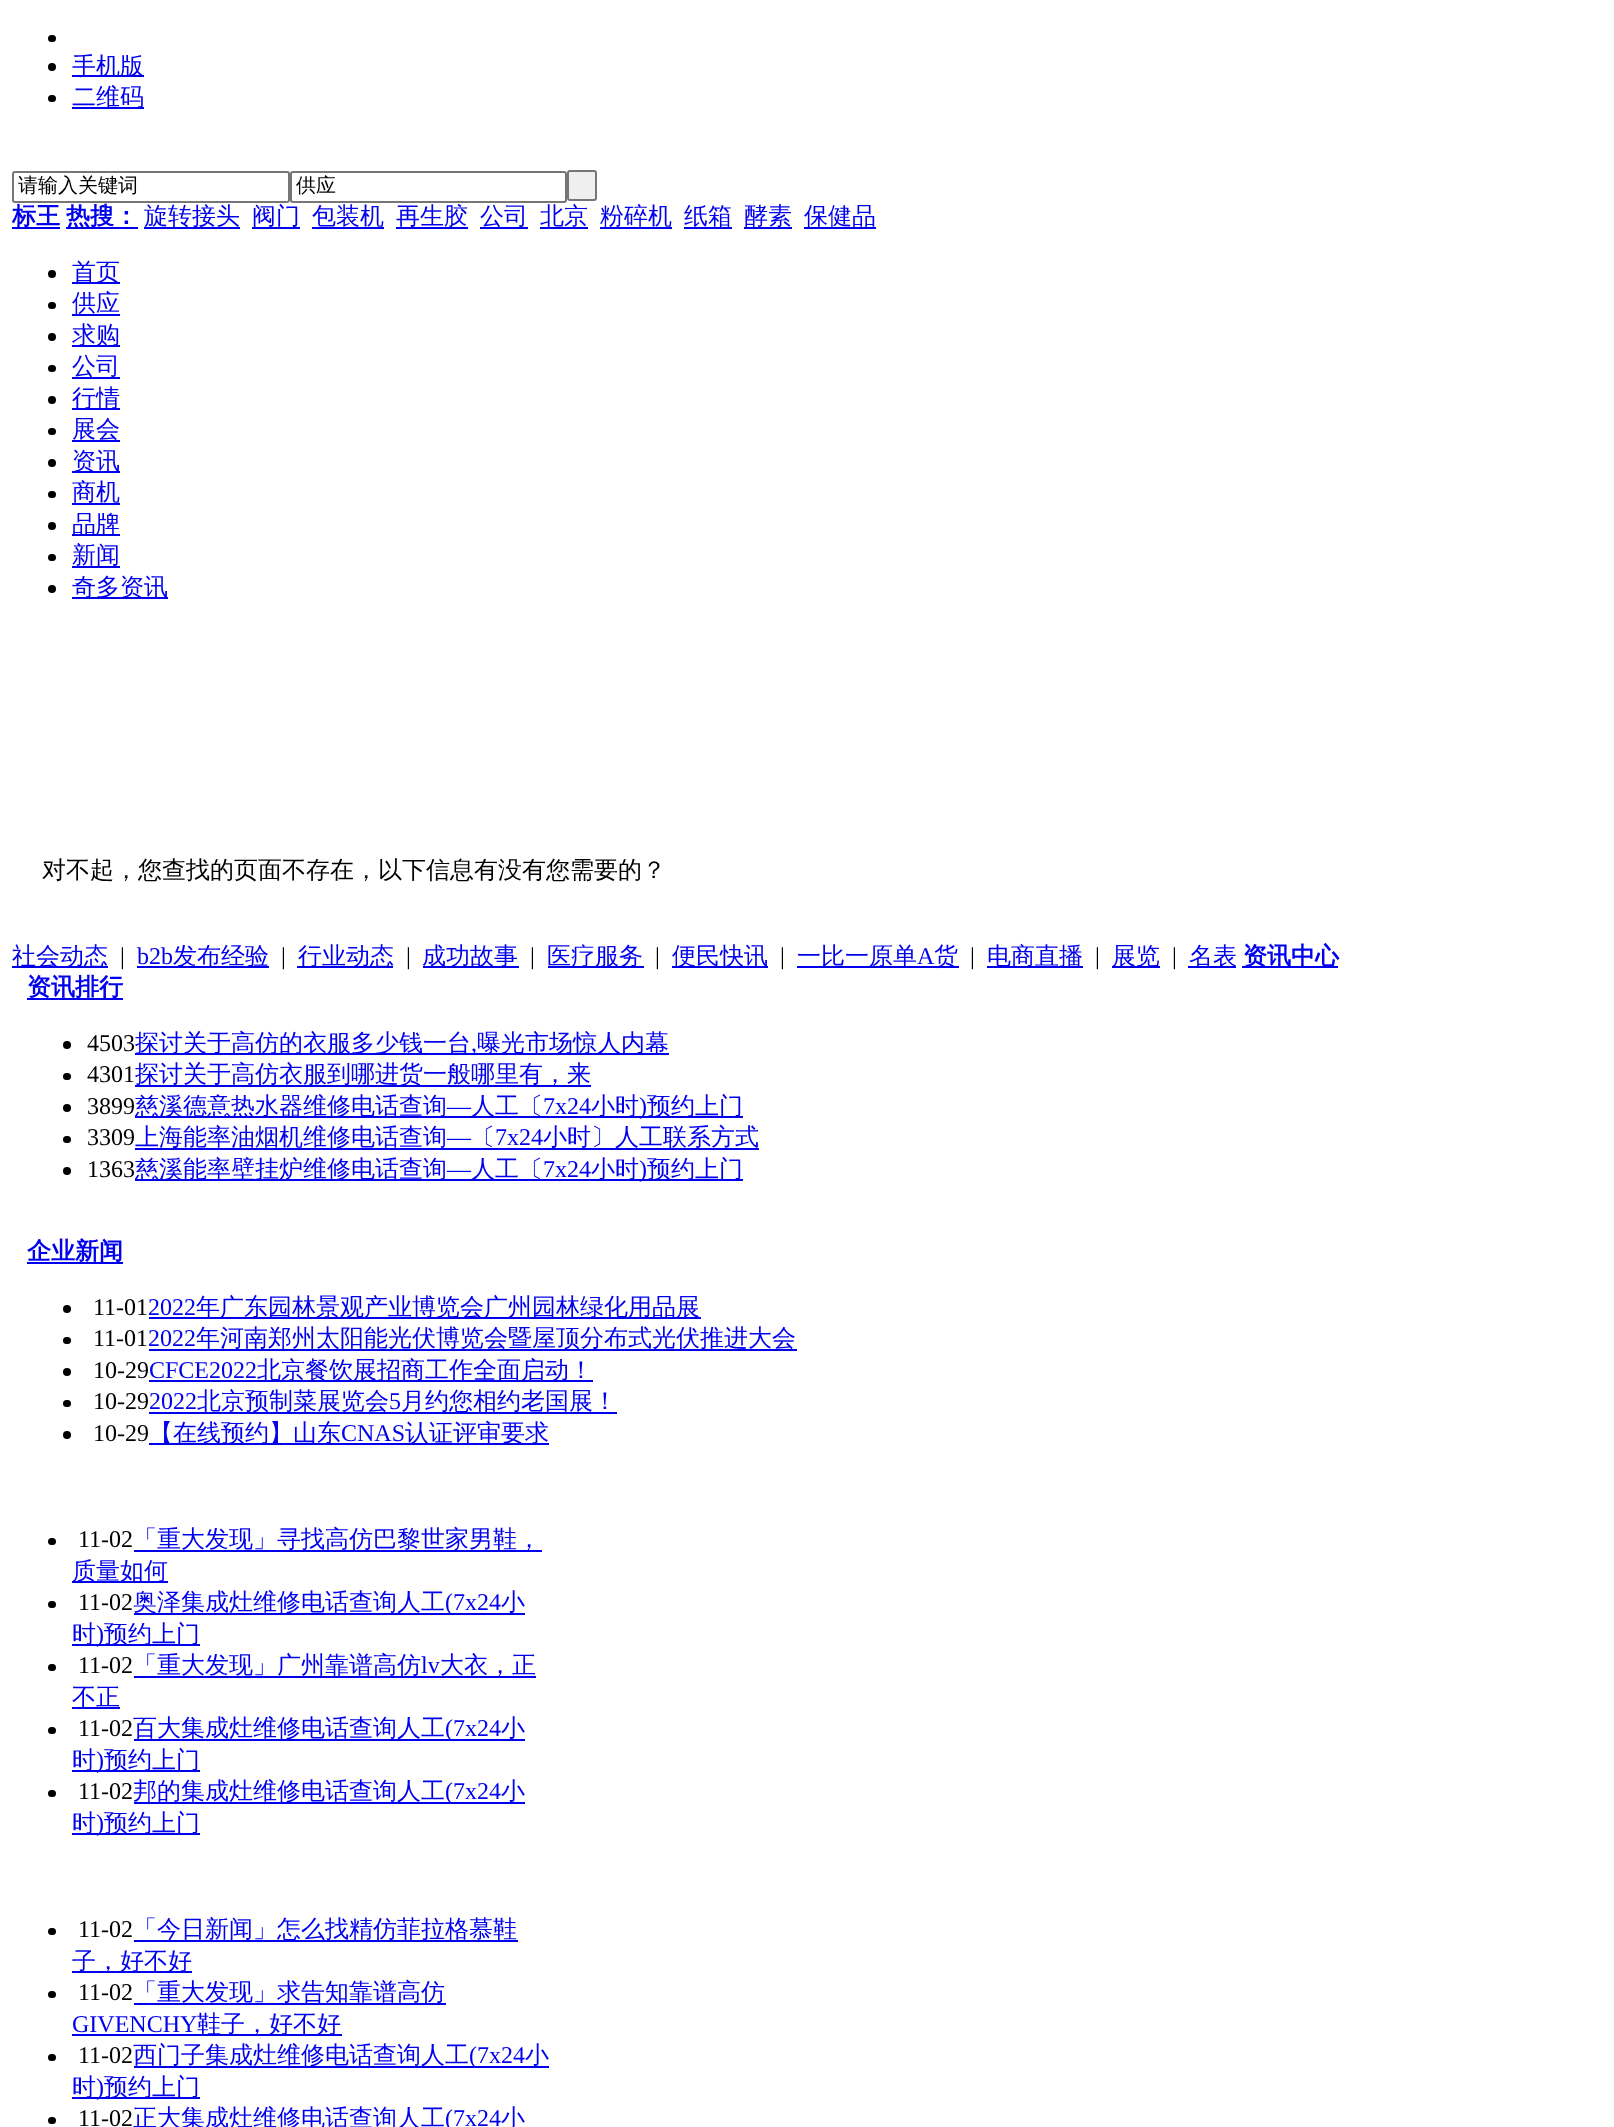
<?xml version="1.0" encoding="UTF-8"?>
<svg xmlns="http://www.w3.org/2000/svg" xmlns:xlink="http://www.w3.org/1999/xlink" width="1614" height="2127">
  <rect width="100%" height="100%" fill="#ffffff" />
  <rect x="48" y="35" width="8" height="7" rx="3.5" fill="#000000" />
  <circle cx="52" cy="67" r="4" fill="#000000" />
  <rect x="72" y="75" width="72" height="2" fill="#0000ee" />
  <rect x="48" y="95" width="8" height="7" rx="3.5" fill="#000000" />
  <rect x="72" y="107" width="72" height="2" fill="#0000ee" />
  <rect x="13" y="172" width="276" height="30" rx="2" fill="none" stroke="#767676" stroke-width="2" />
  <rect x="291" y="172" width="275" height="30" rx="2" fill="none" stroke="#767676" stroke-width="2" />
  <rect x="568" y="171" width="28" height="29" rx="2" fill="#efefef" stroke="#767676" stroke-width="2" />
  <rect x="12" y="227" width="48" height="2" fill="#0000ee" />
  <rect x="66" y="227" width="72" height="2" fill="#0000ee" />
  <rect x="144" y="227" width="96" height="2" fill="#0000ee" />
  <rect x="252" y="227" width="48" height="2" fill="#0000ee" />
  <rect x="312" y="227" width="72" height="2" fill="#0000ee" />
  <rect x="396" y="227" width="72" height="2" fill="#0000ee" />
  <rect x="480" y="227" width="48" height="2" fill="#0000ee" />
  <rect x="540" y="227" width="48" height="2" fill="#0000ee" />
  <rect x="600" y="227" width="72" height="2" fill="#0000ee" />
  <rect x="684" y="227" width="48" height="2" fill="#0000ee" />
  <rect x="744" y="227" width="48" height="2" fill="#0000ee" />
  <rect x="804" y="227" width="72" height="2" fill="#0000ee" />
  <circle cx="52" cy="274" r="4" fill="#000000" />
  <rect x="72" y="282" width="48" height="2" fill="#0000ee" />
  <rect x="48" y="302" width="8" height="7" rx="3.5" fill="#000000" />
  <rect x="72" y="314" width="48" height="2" fill="#0000ee" />
  <circle cx="52" cy="337" r="4" fill="#000000" />
  <rect x="72" y="345" width="48" height="2" fill="#0000ee" />
  <rect x="48" y="365" width="8" height="7" rx="3.5" fill="#000000" />
  <rect x="72" y="377" width="48" height="2" fill="#0000ee" />
  <circle cx="52" cy="400" r="4" fill="#000000" />
  <rect x="72" y="408" width="48" height="2" fill="#0000ee" />
  <rect x="48" y="428" width="8" height="7" rx="3.5" fill="#000000" />
  <rect x="72" y="440" width="48" height="2" fill="#0000ee" />
  <circle cx="52" cy="463" r="4" fill="#000000" />
  <rect x="72" y="471" width="48" height="2" fill="#0000ee" />
  <rect x="48" y="491" width="8" height="7" rx="3.5" fill="#000000" />
  <rect x="72" y="503" width="48" height="2" fill="#0000ee" />
  <circle cx="52" cy="526" r="4" fill="#000000" />
  <rect x="72" y="534" width="48" height="2" fill="#0000ee" />
  <rect x="48" y="554" width="8" height="7" rx="3.5" fill="#000000" />
  <rect x="72" y="566" width="48" height="2" fill="#0000ee" />
  <circle cx="52" cy="589" r="4" fill="#000000" />
  <rect x="72" y="597" width="96" height="2" fill="#0000ee" />
  <rect x="12" y="966" width="96" height="2" fill="#0000ee" />
  <rect x="137" y="966" width="132" height="2" fill="#0000ee" />
  <rect x="297" y="966" width="96" height="2" fill="#0000ee" />
  <rect x="423" y="966" width="96" height="2" fill="#0000ee" />
  <rect x="548" y="966" width="96" height="2" fill="#0000ee" />
  <rect x="672" y="966" width="96" height="2" fill="#0000ee" />
  <rect x="797" y="966" width="162" height="2" fill="#0000ee" />
  <rect x="987" y="966" width="96" height="2" fill="#0000ee" />
  <rect x="1112" y="966" width="48" height="2" fill="#0000ee" />
  <rect x="1188" y="966" width="48" height="2" fill="#0000ee" />
  <rect x="1242" y="966" width="96" height="2" fill="#0000ee" />
  <rect x="27" y="998" width="96" height="2" fill="#0000ee" />
  <circle cx="67" cy="1045" r="4" fill="#000000" />
  <rect x="135" y="1053" width="534" height="2" fill="#0000ee" />
  <rect x="63" y="1073" width="8" height="7" rx="3.5" fill="#000000" />
  <rect x="135" y="1085" width="456" height="2" fill="#0000ee" />
  <circle cx="67" cy="1108" r="4" fill="#000000" />
  <rect x="135" y="1116" width="608" height="2" fill="#0000ee" />
  <rect x="63" y="1136" width="8" height="7" rx="3.5" fill="#000000" />
  <rect x="135" y="1148" width="624" height="2" fill="#0000ee" />
  <circle cx="67" cy="1171" r="4" fill="#000000" />
  <rect x="135" y="1179" width="608" height="2" fill="#0000ee" />
  <rect x="27" y="1262" width="96" height="2" fill="#0000ee" />
  <circle cx="67" cy="1309" r="4" fill="#000000" />
  <rect x="149" y="1317" width="552" height="2" fill="#0000ee" />
  <rect x="63" y="1337" width="8" height="7" rx="3.5" fill="#000000" />
  <rect x="149" y="1349" width="648" height="2" fill="#0000ee" />
  <circle cx="67" cy="1372" r="4" fill="#000000" />
  <rect x="149" y="1380" width="444" height="2" fill="#0000ee" />
  <rect x="63" y="1400" width="8" height="7" rx="3.5" fill="#000000" />
  <rect x="149" y="1412" width="468" height="2" fill="#0000ee" />
  <circle cx="67" cy="1435" r="4" fill="#000000" />
  <rect x="149" y="1443" width="400" height="2" fill="#0000ee" />
  <rect x="48" y="1538" width="8" height="7" rx="3.5" fill="#000000" />
  <rect x="134" y="1550" width="408" height="2" fill="#0000ee" />
  <rect x="72" y="1581" width="96" height="2" fill="#0000ee" />
  <rect x="48" y="1601" width="8" height="7" rx="3.5" fill="#000000" />
  <rect x="134" y="1613" width="391" height="2" fill="#0000ee" />
  <rect x="72" y="1644" width="128" height="2" fill="#0000ee" />
  <rect x="48" y="1664" width="8" height="7" rx="3.5" fill="#000000" />
  <rect x="134" y="1676" width="402" height="2" fill="#0000ee" />
  <rect x="72" y="1707" width="48" height="2" fill="#0000ee" />
  <rect x="48" y="1727" width="8" height="7" rx="3.5" fill="#000000" />
  <rect x="134" y="1739" width="391" height="2" fill="#0000ee" />
  <rect x="72" y="1770" width="128" height="2" fill="#0000ee" />
  <rect x="48" y="1790" width="8" height="7" rx="3.5" fill="#000000" />
  <rect x="134" y="1802" width="391" height="2" fill="#0000ee" />
  <rect x="72" y="1833" width="128" height="2" fill="#0000ee" />
  <rect x="48" y="1928" width="8" height="7" rx="3.5" fill="#000000" />
  <rect x="134" y="1940" width="384" height="2" fill="#0000ee" />
  <rect x="72" y="1971" width="120" height="2" fill="#0000ee" />
  <rect x="48" y="1991" width="8" height="7" rx="3.5" fill="#000000" />
  <rect x="134" y="2003" width="312" height="2" fill="#0000ee" />
  <rect x="72" y="2034" width="270" height="2" fill="#0000ee" />
  <rect x="48" y="2054" width="8" height="7" rx="3.5" fill="#000000" />
  <rect x="134" y="2066" width="415" height="2" fill="#0000ee" />
  <rect x="72" y="2097" width="128" height="2" fill="#0000ee" />
  <rect x="48" y="2117" width="8" height="7" rx="3.5" fill="#000000" />
  <text x="72" y="74" style="font-family: WenQuanYi Zen Hei; font-size: 24px; font-weight: 500; fill: #0000ee">手机版</text>
  <text x="72" y="105" style="font-family: WenQuanYi Zen Hei; font-size: 24px; font-weight: 500; fill: #0000ee">二维码</text>
  <text x="18" y="192" style="font-family: WenQuanYi Zen Hei; font-size: 20px; font-weight: 500; fill: #000000">请输入关键词</text>
  <text x="296" y="192" style="font-family: WenQuanYi Zen Hei; font-size: 20px; font-weight: 500; fill: #000000">供应</text>
  <text x="12" y="224" style="font-family: WenQuanYi Zen Hei; font-size: 24px; font-weight: bold; fill: #0000ee">标王</text>
  <text x="66" y="224" style="font-family: WenQuanYi Zen Hei; font-size: 24px; font-weight: bold; fill: #0000ee">热搜：</text>
  <text x="144" y="224" style="font-family: WenQuanYi Zen Hei; font-size: 24px; font-weight: 500; fill: #0000ee">旋转接头</text>
  <text x="252" y="224" style="font-family: WenQuanYi Zen Hei; font-size: 24px; font-weight: 500; fill: #0000ee">阀门</text>
  <text x="312" y="224" style="font-family: WenQuanYi Zen Hei; font-size: 24px; font-weight: 500; fill: #0000ee">包装机</text>
  <text x="396" y="224" style="font-family: WenQuanYi Zen Hei; font-size: 24px; font-weight: 500; fill: #0000ee">再生胶</text>
  <text x="480" y="224" style="font-family: WenQuanYi Zen Hei; font-size: 24px; font-weight: 500; fill: #0000ee">公司</text>
  <text x="540" y="224" style="font-family: WenQuanYi Zen Hei; font-size: 24px; font-weight: 500; fill: #0000ee">北京</text>
  <text x="600" y="224" style="font-family: WenQuanYi Zen Hei; font-size: 24px; font-weight: 500; fill: #0000ee">粉碎机</text>
  <text x="684" y="224" style="font-family: WenQuanYi Zen Hei; font-size: 24px; font-weight: 500; fill: #0000ee">纸箱</text>
  <text x="744" y="224" style="font-family: WenQuanYi Zen Hei; font-size: 24px; font-weight: 500; fill: #0000ee">酵素</text>
  <text x="804" y="224" style="font-family: WenQuanYi Zen Hei; font-size: 24px; font-weight: 500; fill: #0000ee">保健品</text>
  <text x="72" y="280" style="font-family: WenQuanYi Zen Hei; font-size: 24px; font-weight: 500; fill: #0000ee">首页</text>
  <text x="72" y="311" style="font-family: WenQuanYi Zen Hei; font-size: 24px; font-weight: 500; fill: #0000ee">供应</text>
  <text x="72" y="343" style="font-family: WenQuanYi Zen Hei; font-size: 24px; font-weight: 500; fill: #0000ee">求购</text>
  <text x="72" y="374" style="font-family: WenQuanYi Zen Hei; font-size: 24px; font-weight: 500; fill: #0000ee">公司</text>
  <text x="72" y="406" style="font-family: WenQuanYi Zen Hei; font-size: 24px; font-weight: 500; fill: #0000ee">行情</text>
  <text x="72" y="437" style="font-family: WenQuanYi Zen Hei; font-size: 24px; font-weight: 500; fill: #0000ee">展会</text>
  <text x="72" y="469" style="font-family: WenQuanYi Zen Hei; font-size: 24px; font-weight: 500; fill: #0000ee">资讯</text>
  <text x="72" y="500" style="font-family: WenQuanYi Zen Hei; font-size: 24px; font-weight: 500; fill: #0000ee">商机</text>
  <text x="72" y="532" style="font-family: WenQuanYi Zen Hei; font-size: 24px; font-weight: 500; fill: #0000ee">品牌</text>
  <text x="72" y="563" style="font-family: WenQuanYi Zen Hei; font-size: 24px; font-weight: 500; fill: #0000ee">新闻</text>
  <text x="72" y="595" style="font-family: WenQuanYi Zen Hei; font-size: 24px; font-weight: 500; fill: #0000ee">奇多资讯</text>
  <text x="42" y="878" style="font-family: WenQuanYi Zen Hei; font-size: 24px; font-weight: 500; fill: #000000">对不起，您查找的页面不存在，以下信息有没有您需要的？</text>
  <text x="12" y="964" style="font-family: WenQuanYi Zen Hei; font-size: 24px; font-weight: 500; fill: #0000ee">社会动态</text>
  <text x="120" y="964" style="font-family: Liberation Serif; font-size: 24px; fill: #000000">|</text>
  <text x="137" y="964" style="font-family: Liberation Serif; font-size: 24px; fill: #0000ee">b2b</text>
  <text x="173" y="964" style="font-family: WenQuanYi Zen Hei; font-size: 24px; font-weight: 500; fill: #0000ee">发布经验</text>
  <text x="281" y="964" style="font-family: Liberation Serif; font-size: 24px; fill: #000000">|</text>
  <text x="298" y="964" style="font-family: WenQuanYi Zen Hei; font-size: 24px; font-weight: 500; fill: #0000ee">行业动态</text>
  <text x="406" y="964" style="font-family: Liberation Serif; font-size: 24px; fill: #000000">|</text>
  <text x="422" y="964" style="font-family: WenQuanYi Zen Hei; font-size: 24px; font-weight: 500; fill: #0000ee">成功故事</text>
  <text x="530" y="964" style="font-family: Liberation Serif; font-size: 24px; fill: #000000">|</text>
  <text x="547" y="964" style="font-family: WenQuanYi Zen Hei; font-size: 24px; font-weight: 500; fill: #0000ee">医疗服务</text>
  <text x="655" y="964" style="font-family: Liberation Serif; font-size: 24px; fill: #000000">|</text>
  <text x="672" y="964" style="font-family: WenQuanYi Zen Hei; font-size: 24px; font-weight: 500; fill: #0000ee">便民快讯</text>
  <text x="780" y="964" style="font-family: Liberation Serif; font-size: 24px; fill: #000000">|</text>
  <text x="797" y="964" style="font-family: WenQuanYi Zen Hei; font-size: 24px; font-weight: 500; fill: #0000ee">一比一原单</text>
  <text x="917" y="964" style="font-family: Liberation Serif; font-size: 24px; fill: #0000ee">A</text>
  <text x="934" y="964" style="font-family: WenQuanYi Zen Hei; font-size: 24px; font-weight: 500; fill: #0000ee">货</text>
  <text x="970" y="964" style="font-family: Liberation Serif; font-size: 24px; fill: #000000">|</text>
  <text x="987" y="964" style="font-family: WenQuanYi Zen Hei; font-size: 24px; font-weight: 500; fill: #0000ee">电商直播</text>
  <text x="1095" y="964" style="font-family: Liberation Serif; font-size: 24px; fill: #000000">|</text>
  <text x="1112" y="964" style="font-family: WenQuanYi Zen Hei; font-size: 24px; font-weight: 500; fill: #0000ee">展览</text>
  <text x="1172" y="964" style="font-family: Liberation Serif; font-size: 24px; fill: #000000">|</text>
  <text x="1189" y="964" style="font-family: WenQuanYi Zen Hei; font-size: 24px; font-weight: 500; fill: #0000ee">名表</text>
  <text x="1243" y="964" style="font-family: WenQuanYi Zen Hei; font-size: 24px; font-weight: bold; fill: #0000ee">资讯中心</text>
  <text x="27" y="995" style="font-family: WenQuanYi Zen Hei; font-size: 24px; font-weight: bold; fill: #0000ee">资讯排行</text>
  <text x="87" y="1051" style="font-family: Liberation Serif; font-size: 24px; fill: #000000">4503</text>
  <text x="135" y="1051" style="font-family: WenQuanYi Zen Hei; font-size: 24px; font-weight: 500; fill: #0000ee">探讨关于高仿的衣服多少钱一台</text>
  <text x="477" y="1051" style="font-family: WenQuanYi Zen Hei; font-size: 24px; font-weight: 500; fill: #0000ee">曝光市场惊人内幕</text>
  <text x="471" y="1051" style="font-family: Liberation Serif; font-size: 24px; fill: #0000ee">,</text>
  <text x="87" y="1082" style="font-family: Liberation Serif; font-size: 24px; fill: #000000">4301</text>
  <text x="135" y="1082" style="font-family: WenQuanYi Zen Hei; font-size: 24px; font-weight: 500; fill: #0000ee">探讨关于高仿衣服到哪进货一般哪里有，来</text>
  <text x="87" y="1114" style="font-family: Liberation Serif; font-size: 24px; fill: #000000">3899</text>
  <text x="135" y="1114" style="font-family: WenQuanYi Zen Hei; font-size: 24px; font-weight: 500; fill: #0000ee">慈溪德意热水器维修电话查询</text>
  <text x="447" y="1114" style="font-family: Liberation Serif; font-size: 24px; fill: #0000ee">—</text>
  <text x="471" y="1114" style="font-family: WenQuanYi Zen Hei; font-size: 24px; font-weight: 500; fill: #0000ee">人工〔</text>
  <text x="543" y="1114" style="font-family: Liberation Serif; font-size: 24px; fill: #0000ee">7x24</text>
  <text x="591" y="1114" style="font-family: WenQuanYi Zen Hei; font-size: 24px; font-weight: 500; fill: #0000ee">小时</text>
  <text x="639" y="1114" style="font-family: Liberation Serif; font-size: 24px; fill: #0000ee">)</text>
  <text x="647" y="1114" style="font-family: WenQuanYi Zen Hei; font-size: 24px; font-weight: 500; fill: #0000ee">预约上门</text>
  <text x="87" y="1145" style="font-family: Liberation Serif; font-size: 24px; fill: #000000">3309</text>
  <text x="135" y="1145" style="font-family: WenQuanYi Zen Hei; font-size: 24px; font-weight: 500; fill: #0000ee">上海能率油烟机维修电话查询</text>
  <text x="447" y="1145" style="font-family: Liberation Serif; font-size: 24px; fill: #0000ee">—</text>
  <text x="471" y="1145" style="font-family: WenQuanYi Zen Hei; font-size: 24px; font-weight: 500; fill: #0000ee">〔</text>
  <text x="495" y="1145" style="font-family: Liberation Serif; font-size: 24px; fill: #0000ee">7x24</text>
  <text x="543" y="1145" style="font-family: WenQuanYi Zen Hei; font-size: 24px; font-weight: 500; fill: #0000ee">小时〕人工联系方式</text>
  <text x="87" y="1177" style="font-family: Liberation Serif; font-size: 24px; fill: #000000">1363</text>
  <text x="135" y="1177" style="font-family: WenQuanYi Zen Hei; font-size: 24px; font-weight: 500; fill: #0000ee">慈溪能率壁挂炉维修电话查询</text>
  <text x="447" y="1177" style="font-family: Liberation Serif; font-size: 24px; fill: #0000ee">—</text>
  <text x="471" y="1177" style="font-family: WenQuanYi Zen Hei; font-size: 24px; font-weight: 500; fill: #0000ee">人工〔</text>
  <text x="543" y="1177" style="font-family: Liberation Serif; font-size: 24px; fill: #0000ee">7x24</text>
  <text x="591" y="1177" style="font-family: WenQuanYi Zen Hei; font-size: 24px; font-weight: 500; fill: #0000ee">小时</text>
  <text x="639" y="1177" style="font-family: Liberation Serif; font-size: 24px; fill: #0000ee">)</text>
  <text x="647" y="1177" style="font-family: WenQuanYi Zen Hei; font-size: 24px; font-weight: 500; fill: #0000ee">预约上门</text>
  <text x="27" y="1259" style="font-family: WenQuanYi Zen Hei; font-size: 24px; font-weight: bold; fill: #0000ee">企业新闻</text>
  <text x="93" y="1315" style="font-family: Liberation Serif; font-size: 24px; fill: #000000">11-01</text>
  <text x="148" y="1315" style="font-family: Liberation Serif; font-size: 24px; fill: #0000ee">2022</text>
  <text x="196" y="1315" style="font-family: WenQuanYi Zen Hei; font-size: 24px; font-weight: 500; fill: #0000ee">年广东园林景观产业博览会广州园林绿化用品展</text>
  <text x="93" y="1346" style="font-family: Liberation Serif; font-size: 24px; fill: #000000">11-01</text>
  <text x="148" y="1346" style="font-family: Liberation Serif; font-size: 24px; fill: #0000ee">2022</text>
  <text x="196" y="1346" style="font-family: WenQuanYi Zen Hei; font-size: 24px; font-weight: 500; fill: #0000ee">年河南郑州太阳能光伏博览会暨屋顶分布式光伏推进大会</text>
  <text x="93" y="1378" style="font-family: Liberation Serif; font-size: 24px; fill: #000000">10-29</text>
  <text x="149" y="1378" style="font-family: Liberation Serif; font-size: 24px; fill: #0000ee">CFCE2022</text>
  <text x="257" y="1378" style="font-family: WenQuanYi Zen Hei; font-size: 24px; font-weight: 500; fill: #0000ee">北京餐饮展招商工作全面启动！</text>
  <text x="93" y="1409" style="font-family: Liberation Serif; font-size: 24px; fill: #000000">10-29</text>
  <text x="149" y="1409" style="font-family: Liberation Serif; font-size: 24px; fill: #0000ee">2022</text>
  <text x="197" y="1409" style="font-family: WenQuanYi Zen Hei; font-size: 24px; font-weight: 500; fill: #0000ee">北京预制菜展览会</text>
  <text x="389" y="1409" style="font-family: Liberation Serif; font-size: 24px; fill: #0000ee">5</text>
  <text x="401" y="1409" style="font-family: WenQuanYi Zen Hei; font-size: 24px; font-weight: 500; fill: #0000ee">月约您相约老国展！</text>
  <text x="93" y="1441" style="font-family: Liberation Serif; font-size: 24px; fill: #000000">10-29</text>
  <text x="149" y="1441" style="font-family: WenQuanYi Zen Hei; font-size: 24px; font-weight: 500; fill: #0000ee">【在线预约】山东</text>
  <text x="341" y="1441" style="font-family: Liberation Serif; font-size: 24px; fill: #0000ee">CNAS</text>
  <text x="405" y="1441" style="font-family: WenQuanYi Zen Hei; font-size: 24px; font-weight: 500; fill: #0000ee">认证评审要求</text>
  <text x="78" y="1547" style="font-family: Liberation Serif; font-size: 24px; fill: #000000">11-02</text>
  <text x="133" y="1547" style="font-family: WenQuanYi Zen Hei; font-size: 24px; font-weight: 500; fill: #0000ee">「重大发现」寻找高仿巴黎世家男鞋，</text>
  <text x="72" y="1579" style="font-family: WenQuanYi Zen Hei; font-size: 24px; font-weight: 500; fill: #0000ee">质量如何</text>
  <text x="78" y="1610" style="font-family: Liberation Serif; font-size: 24px; fill: #000000">11-02</text>
  <text x="133" y="1610" style="font-family: WenQuanYi Zen Hei; font-size: 24px; font-weight: 500; fill: #0000ee">奥泽集成灶维修电话查询人工</text>
  <text x="445" y="1610" style="font-family: Liberation Serif; font-size: 24px; fill: #0000ee">(7x24</text>
  <text x="501" y="1610" style="font-family: WenQuanYi Zen Hei; font-size: 24px; font-weight: 500; fill: #0000ee">小</text>
  <text x="72" y="1642" style="font-family: WenQuanYi Zen Hei; font-size: 24px; font-weight: 500; fill: #0000ee">时</text>
  <text x="96" y="1642" style="font-family: Liberation Serif; font-size: 24px; fill: #0000ee">)</text>
  <text x="104" y="1642" style="font-family: WenQuanYi Zen Hei; font-size: 24px; font-weight: 500; fill: #0000ee">预约上门</text>
  <text x="78" y="1673" style="font-family: Liberation Serif; font-size: 24px; fill: #000000">11-02</text>
  <text x="133" y="1673" style="font-family: WenQuanYi Zen Hei; font-size: 24px; font-weight: 500; fill: #0000ee">「重大发现」广州靠谱高仿</text>
  <text x="421" y="1673" style="font-family: Liberation Serif; font-size: 24px; fill: #0000ee">lv</text>
  <text x="440" y="1673" style="font-family: WenQuanYi Zen Hei; font-size: 24px; font-weight: 500; fill: #0000ee">大衣，正</text>
  <text x="72" y="1705" style="font-family: WenQuanYi Zen Hei; font-size: 24px; font-weight: 500; fill: #0000ee">不正</text>
  <text x="78" y="1736" style="font-family: Liberation Serif; font-size: 24px; fill: #000000">11-02</text>
  <text x="133" y="1736" style="font-family: WenQuanYi Zen Hei; font-size: 24px; font-weight: 500; fill: #0000ee">百大集成灶维修电话查询人工</text>
  <text x="445" y="1736" style="font-family: Liberation Serif; font-size: 24px; fill: #0000ee">(7x24</text>
  <text x="501" y="1736" style="font-family: WenQuanYi Zen Hei; font-size: 24px; font-weight: 500; fill: #0000ee">小</text>
  <text x="72" y="1768" style="font-family: WenQuanYi Zen Hei; font-size: 24px; font-weight: 500; fill: #0000ee">时</text>
  <text x="96" y="1768" style="font-family: Liberation Serif; font-size: 24px; fill: #0000ee">)</text>
  <text x="104" y="1768" style="font-family: WenQuanYi Zen Hei; font-size: 24px; font-weight: 500; fill: #0000ee">预约上门</text>
  <text x="78" y="1799" style="font-family: Liberation Serif; font-size: 24px; fill: #000000">11-02</text>
  <text x="133" y="1799" style="font-family: WenQuanYi Zen Hei; font-size: 24px; font-weight: 500; fill: #0000ee">邦的集成灶维修电话查询人工</text>
  <text x="445" y="1799" style="font-family: Liberation Serif; font-size: 24px; fill: #0000ee">(7x24</text>
  <text x="501" y="1799" style="font-family: WenQuanYi Zen Hei; font-size: 24px; font-weight: 500; fill: #0000ee">小</text>
  <text x="72" y="1831" style="font-family: WenQuanYi Zen Hei; font-size: 24px; font-weight: 500; fill: #0000ee">时</text>
  <text x="96" y="1831" style="font-family: Liberation Serif; font-size: 24px; fill: #0000ee">)</text>
  <text x="104" y="1831" style="font-family: WenQuanYi Zen Hei; font-size: 24px; font-weight: 500; fill: #0000ee">预约上门</text>
  <text x="78" y="1937" style="font-family: Liberation Serif; font-size: 24px; fill: #000000">11-02</text>
  <text x="133" y="1937" style="font-family: WenQuanYi Zen Hei; font-size: 24px; font-weight: 500; fill: #0000ee">「今日新闻」怎么找精仿菲拉格慕鞋</text>
  <text x="72" y="1969" style="font-family: WenQuanYi Zen Hei; font-size: 24px; font-weight: 500; fill: #0000ee">子，好不好</text>
  <text x="78" y="2000" style="font-family: Liberation Serif; font-size: 24px; fill: #000000">11-02</text>
  <text x="133" y="2000" style="font-family: WenQuanYi Zen Hei; font-size: 24px; font-weight: 500; fill: #0000ee">「重大发现」求告知靠谱高仿</text>
  <text x="72" y="2032" style="font-family: Liberation Serif; font-size: 24px; fill: #0000ee">GIVENCHY</text>
  <text x="197" y="2032" style="font-family: WenQuanYi Zen Hei; font-size: 24px; font-weight: 500; fill: #0000ee">鞋子，好不好</text>
  <text x="78" y="2063" style="font-family: Liberation Serif; font-size: 24px; fill: #000000">11-02</text>
  <text x="133" y="2063" style="font-family: WenQuanYi Zen Hei; font-size: 24px; font-weight: 500; fill: #0000ee">西门子集成灶维修电话查询人工</text>
  <text x="469" y="2063" style="font-family: Liberation Serif; font-size: 24px; fill: #0000ee">(7x24</text>
  <text x="525" y="2063" style="font-family: WenQuanYi Zen Hei; font-size: 24px; font-weight: 500; fill: #0000ee">小</text>
  <text x="72" y="2095" style="font-family: WenQuanYi Zen Hei; font-size: 24px; font-weight: 500; fill: #0000ee">时</text>
  <text x="96" y="2095" style="font-family: Liberation Serif; font-size: 24px; fill: #0000ee">)</text>
  <text x="104" y="2095" style="font-family: WenQuanYi Zen Hei; font-size: 24px; font-weight: 500; fill: #0000ee">预约上门</text>
  <text x="78" y="2126" style="font-family: Liberation Serif; font-size: 24px; fill: #000000">11-02</text>
  <text x="133" y="2126" style="font-family: WenQuanYi Zen Hei; font-size: 24px; font-weight: 500; fill: #0000ee">正大集成灶维修电话查询人工</text>
  <text x="445" y="2126" style="font-family: Liberation Serif; font-size: 24px; fill: #0000ee">(7x24</text>
  <text x="501" y="2126" style="font-family: WenQuanYi Zen Hei; font-size: 24px; font-weight: 500; fill: #0000ee">小</text>
</svg>
